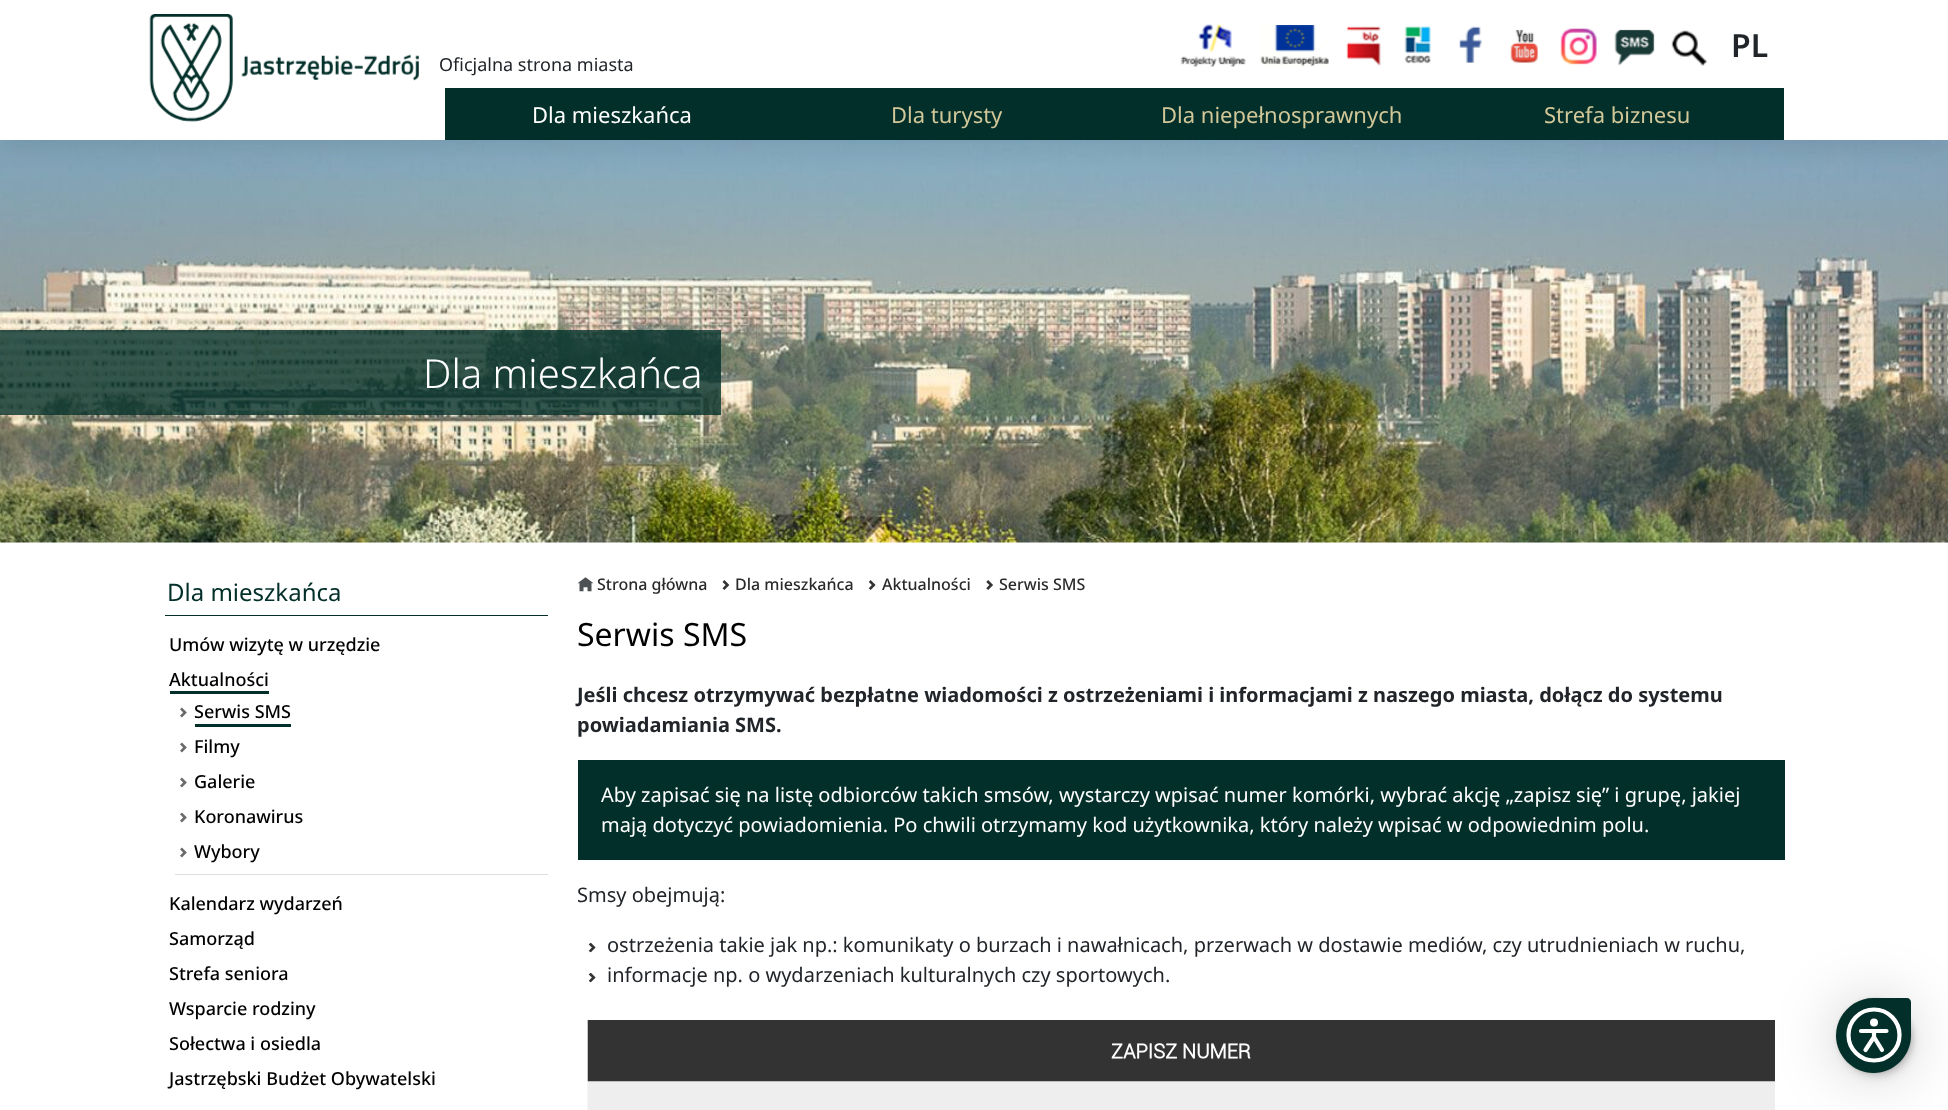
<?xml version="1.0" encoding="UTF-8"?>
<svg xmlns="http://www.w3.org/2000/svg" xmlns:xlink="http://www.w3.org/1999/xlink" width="1948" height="1110">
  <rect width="100%" height="100%" fill="#ffffff" />
  <image x="0" y="140" width="1948" height="403" xlink:href="image11.png" />
  <rect y="6" width="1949" height="140" fill="#000000" fill-opacity="0.1" filter="blur(12.5px)" />
  <rect width="1948" height="140" fill="#ffffff" />
  <image x="149" y="14" width="270" height="108" xlink:href="image1.png" />
  <image x="1180" y="24" width="66" height="43" xlink:href="image2.png" />
  <image x="1260" y="25" width="69" height="42" xlink:href="image3.png" />
  <image x="1346" y="26" width="35" height="40" xlink:href="image4.png" />
  <image x="1404" y="26" width="27" height="38" xlink:href="image5.png" />
  <image x="1459" y="26" width="23" height="37" xlink:href="image6.png" />
  <image x="1510" y="29" width="28" height="34" xlink:href="image7.png" />
  <image x="1560" y="28" width="37" height="37" xlink:href="image8.png" />
  <image x="1614" y="29" width="41" height="37" xlink:href="image9.png" />
  <image x="1671" y="30" width="36" height="36" xlink:href="image10.png" />
  <rect x="445" y="88" width="1339" height="52" fill="#022f29" />
  <rect y="330" width="721" height="85" fill="#022f29" fill-opacity="0.8" />
  <rect x="165" y="615" width="383" height="1" fill="#022f29" />
  <rect x="170" y="691" width="99" height="3" fill="#022f29" />
  <rect x="175" y="874" width="373" height="1" fill="#dddddd" />
  <image x="180" y="707" width="7" height="11" xlink:href="image12.png" />
  <rect x="195" y="724" width="96" height="3" fill="#022f29" />
  <image x="180" y="742" width="7" height="11" xlink:href="image12.png" />
  <image x="180" y="777" width="7" height="11" xlink:href="image12.png" />
  <image x="180" y="812" width="7" height="11" xlink:href="image12.png" />
  <image x="180" y="847" width="7" height="11" xlink:href="image12.png" />
  <image x="577" y="577" width="17" height="15" xlink:href="image13.png" />
  <image x="722" y="580" width="8" height="10" xlink:href="image14.png" />
  <image x="868" y="580" width="8" height="10" xlink:href="image15.png" />
  <image x="986" y="580" width="7" height="10" xlink:href="image16.png" />
  <rect x="578" y="760" width="1207" height="100" fill="#022f29" />
  <image x="588" y="943" width="8" height="10" xlink:href="image17.png" />
  <image x="588" y="973" width="8" height="10" xlink:href="image17.png" />
  <image x="587" y="1020" width="1188" height="90" xlink:href="image18.png" />
  <rect x="1836" y="1000" width="75" height="75" rx="37.5" fill="#000000" fill-opacity="0.2" filter="blur(31px)" />
  <rect x="1839" y="1003" width="75" height="75" rx="37.5" fill="#000000" fill-opacity="0.1" filter="blur(5px)" />
  <rect x="1839" y="1000" width="75" height="75" rx="37.5" fill="#000000" fill-opacity="0.1" filter="blur(2px)" />
  <rect x="1836" y="998" width="75" height="75" rx="37.5" fill="#000000" fill-opacity="0.1" filter="blur(1px)" />
  <path d="M 1873.5 998 h 33.5 c 2 0 4 2 4 4 v 33.5 c 0 20.5 -17 37.5 -37.5 37.5 c -20.5 0 -37.5 -17 -37.5 -37.5 c 0 -20.5 17 -37.5 37.5 -37.5 z" fill="#022f29" />
  <circle cx="1874" cy="1035" r="25.5" fill="none" stroke="#ffffff" stroke-width="4.2" />
  <circle cx="1874" cy="1022.5" r="4" fill="#ffffff" />
  <path d="M 1861 1031 h 25.5 m -4.5 19 l -8 -13 l -8.5 13 m 8.5 -19 v 6" fill="none" stroke="#ffffff" stroke-width="4.2" stroke-linecap="round" stroke-linejoin="round" />
  <text x="1731" y="57" style="font-family: Noto Sans; font-size: 32px; font-weight: 600; fill: #212529">PL</text>
  <text x="439" y="71" style="font-family: Noto Sans; font-size: 18px; fill: #212529">Oficjalna strona miasta</text>
  <text x="532" y="123" style="font-family: Noto Sans; font-size: 22px; fill: #ffffff">Dla mieszkańca</text>
  <text x="891" y="123" style="font-family: Noto Sans; font-size: 22px; fill: #d2c799">Dla turysty</text>
  <text x="1161" y="123" style="font-family: Noto Sans; font-size: 22px; fill: #d2c799">Dla niepełnosprawnych</text>
  <text x="1544" y="123" style="font-family: Noto Sans; font-size: 22px; fill: #d2c799">Strefa biznesu</text>
  <text x="423" y="388" style="font-family: Noto Sans; font-size: 40px; font-weight: 300; fill: #ffffff">Dla mieszkańca</text>
  <text x="167" y="601" style="font-family: Noto Sans; font-size: 24px; fill: #022f29">Dla mieszkańca</text>
  <text x="169" y="651" style="font-family: Noto Sans; font-size: 18px; font-weight: 500; fill: #000000">Umów wizytę w urzędzie</text>
  <text x="169" y="686" style="font-family: Noto Sans; font-size: 18px; font-weight: 500; fill: #000000">Aktualności</text>
  <text x="194" y="718" style="font-family: Noto Sans; font-size: 18px; font-weight: 500; fill: #000000">Serwis SMS</text>
  <text x="194" y="753" style="font-family: Noto Sans; font-size: 18px; font-weight: 500; fill: #000000">Filmy</text>
  <text x="194" y="788" style="font-family: Noto Sans; font-size: 18px; font-weight: 500; fill: #000000">Galerie</text>
  <text x="194" y="823" style="font-family: Noto Sans; font-size: 18px; font-weight: 500; fill: #000000">Koronawirus</text>
  <text x="194" y="858" style="font-family: Noto Sans; font-size: 18px; font-weight: 500; fill: #000000">Wybory</text>
  <text x="169" y="910" style="font-family: Noto Sans; font-size: 18px; font-weight: 500; fill: #000000">Kalendarz wydarzeń</text>
  <text x="169" y="945" style="font-family: Noto Sans; font-size: 18px; font-weight: 500; fill: #000000">Samorząd</text>
  <text x="169" y="980" style="font-family: Noto Sans; font-size: 18px; font-weight: 500; fill: #000000">Strefa seniora</text>
  <text x="169" y="1015" style="font-family: Noto Sans; font-size: 18px; font-weight: 500; fill: #000000">Wsparcie rodziny</text>
  <text x="169" y="1050" style="font-family: Noto Sans; font-size: 18px; font-weight: 500; fill: #000000">Sołectwa i osiedla</text>
  <text x="169" y="1085" style="font-family: Noto Sans; font-size: 18px; font-weight: 500; fill: #000000">Jastrzębski Budżet Obywatelski</text>
  <text x="597" y="590" style="font-family: Noto Sans; font-size: 16px; font-weight: 500; fill: #2a2a2a">Strona główna</text>
  <text x="735" y="590" style="font-family: Noto Sans; font-size: 16px; font-weight: 500; fill: #2a2a2a">Dla mieszkańca</text>
  <text x="882" y="590" style="font-family: Noto Sans; font-size: 16px; font-weight: 500; fill: #2a2a2a">Aktualności</text>
  <text x="999" y="590" style="font-family: Noto Sans; font-size: 16px; font-weight: 500; fill: #2a2a2a">Serwis SMS</text>
  <text x="577" y="646" style="font-family: Noto Sans; font-size: 32px; fill: #000000">Serwis SMS</text>
  <text x="577" y="702" style="font-family: Noto Sans; font-size: 20px; font-weight: bold; fill: #212529">Jeśli chcesz otrzymywać bezpłatne wiadomości z ostrzeżeniami i informacjami z naszego miasta, dołącz do systemu</text>
  <text x="577" y="732" style="font-family: Noto Sans; font-size: 20px; font-weight: bold; fill: #212529">powiadamiania SMS.</text>
  <text x="601" y="802" style="font-family: Noto Sans; font-size: 20px; fill: #ffffff">Aby zapisać się na listę odbiorców takich smsów, wystarczy wpisać numer komórki, wybrać akcję „zapisz się” i grupę, jakiej</text>
  <text x="601" y="832" style="font-family: Noto Sans; font-size: 20px; fill: #ffffff">mają dotyczyć powiadomienia. Po chwili otrzymamy kod użytkownika, który należy wpisać w odpowiednim polu.</text>
  <text x="577" y="902" style="font-family: Noto Sans; font-size: 20px; fill: #212529">Smsy obejmują:</text>
  <text x="607" y="952" style="font-family: Noto Sans; font-size: 20px; fill: #212529">ostrzeżenia takie jak np.: komunikaty o burzach i nawałnicach, przerwach w dostawie mediów, czy utrudnieniach w ruchu,</text>
  <text x="607" y="982" style="font-family: Noto Sans; font-size: 20px; fill: #212529">informacje np. o wydarzeniach kulturalnych czy sportowych.</text>
</svg>
